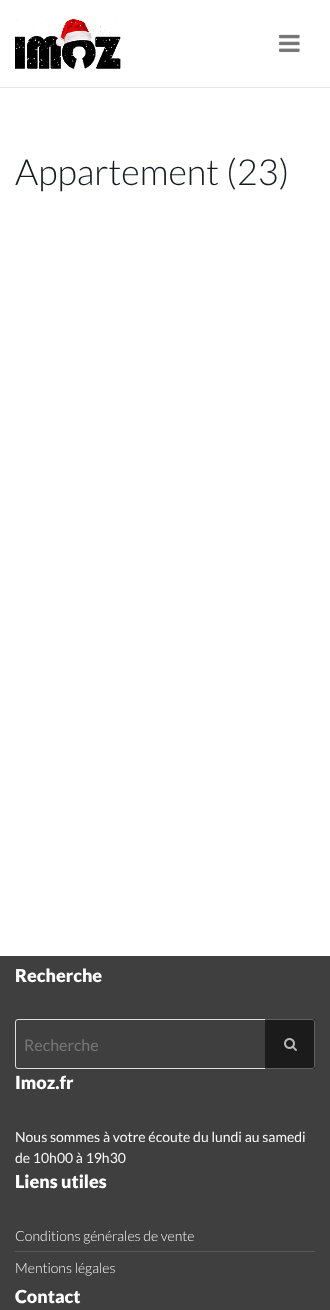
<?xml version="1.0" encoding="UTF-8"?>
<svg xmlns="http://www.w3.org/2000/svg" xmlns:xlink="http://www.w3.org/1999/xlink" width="330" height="1310">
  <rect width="100%" height="100%" fill="#ffffff" />
  <rect y="87" width="330" height="1" fill="#e5e5e5" />
  <image x="15" y="19" width="106" height="50" xlink:href="image1.png" />
  <image x="279" y="34" width="21" height="18" xlink:href="image2.png" />
  <rect y="956" width="330" height="354" fill="#3f3f3f" />
  <rect x="15.5" y="1019.5" width="299" height="49" rx="2.5" fill="none" stroke="#dedede" />
  <rect x="265" y="1019" width="50" height="50" fill="#000000" fill-opacity="0.56" />
  <image x="284" y="1038" width="13" height="13" xlink:href="image3.png" />
  <rect x="15" y="1251" width="300" height="1" fill="#5a5a5a" />
  <text x="15" y="185" style="font-family: Lato; font-size: 36px; font-weight: 300; fill: #181a21">Appartement (23)</text>
  <text x="15" y="982" style="font-family: Lato; font-size: 18px; font-weight: 900; fill: #ffffff">Recherche</text>
  <text x="24" y="1051" style="font-family: Lato; font-size: 16px; fill: #777777">Recherche</text>
  <text x="15" y="1089" style="font-family: Lato; font-size: 18px; font-weight: 900; fill: #ffffff">Imoz.fr</text>
  <text x="15" y="1142" style="font-family: Lato; font-size: 14px; fill: #f7f7f7">Nous sommes à votre écoute du lundi au samedi</text>
  <text x="15" y="1163" style="font-family: Lato; font-size: 14px; fill: #f7f7f7">de 10h00 à 19h30</text>
  <text x="15" y="1188" style="font-family: Lato; font-size: 18px; font-weight: 900; fill: #ffffff">Liens utiles</text>
  <text x="15" y="1241" style="font-family: Lato; font-size: 14px; font-weight: 300; fill: #f7f7f7">Conditions générales de vente</text>
  <text x="15" y="1273" style="font-family: Lato; font-size: 14px; font-weight: 300; fill: #f7f7f7">Mentions légales</text>
  <text x="15" y="1303" style="font-family: Lato; font-size: 18px; font-weight: 900; fill: #ffffff">Contact</text>
</svg>
